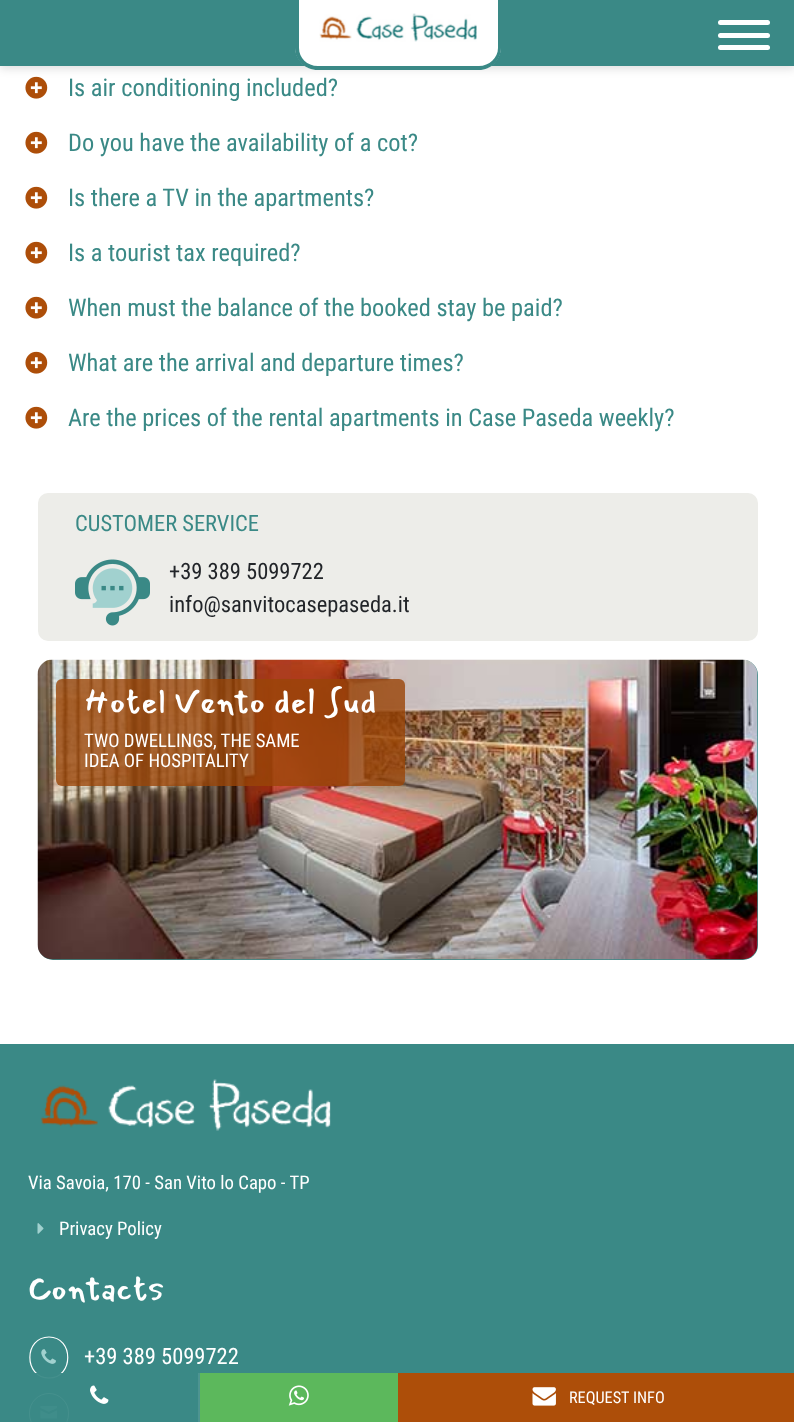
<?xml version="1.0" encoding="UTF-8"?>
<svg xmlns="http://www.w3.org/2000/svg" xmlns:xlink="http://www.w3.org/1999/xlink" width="794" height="1422">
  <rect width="100%" height="100%" fill="#ffffff" />
  <image x="25" y="76" width="23" height="23" xlink:href="image1.png" />
  <image x="25" y="131" width="23" height="23" xlink:href="image1.png" />
  <image x="25" y="186" width="23" height="23" xlink:href="image1.png" />
  <image x="25" y="241" width="23" height="23" xlink:href="image1.png" />
  <image x="25" y="296" width="23" height="23" xlink:href="image1.png" />
  <image x="25" y="351" width="23" height="23" xlink:href="image1.png" />
  <image x="25" y="406" width="23" height="23" xlink:href="image1.png" />
  <rect x="38" y="493" width="720" height="148" rx="10" fill="#edede9" />
  <image x="75" y="559" width="75" height="67" xlink:href="image2.png" />
  <rect x="38" y="660" width="720" height="300" rx="15" fill="#3a8986" />
  <image x="37" y="659" width="721" height="301" xlink:href="image3.png" />
  <rect x="56" y="679" width="349" height="107" rx="6" fill="#9a4508" fill-opacity="0.8" />
  <rect y="1044" width="794" height="378" fill="#3a8986" />
  <image x="40" y="1079" width="291" height="52" xlink:href="image4.png" />
  <image x="37" y="1223" width="7" height="11" xlink:href="image5.png" />
  <path d="M 49 1337 c 25 0 25 41 0 41 c -25.5 0 -25.5 -41 0 -41 z" fill="none" stroke="#ffffff" stroke-width="1.2" />
  <image x="41" y="1349" width="15" height="15" xlink:href="image6.png" />
  <rect x="29.5" y="1393.5" width="39" height="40" rx="19.5" fill="none" stroke="#ffffff" />
  <image x="40" y="1405" width="18" height="14" xlink:href="image7.png" />
  <rect y="3" width="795" height="66" fill="#000000" fill-opacity="0.12" filter="blur(4px)" />
  <rect width="794" height="66" fill="#3a8986" />
  <path d="M 295 0 h 206 v 47 c 0 12.5 -10.5 23 -23 23 h -160 c -12.5 0 -23 -10.5 -23 -23 z" fill="#ffffff" />
  <path d="M 295 0 h 206 v 48 c 0 12 -10 22 -22 22 h -161 c -13 0 -23 -10 -23 -22 z m 4 0 h 199 v 48 c 0 10 -9 18 -19 18 h -161 c -11 0 -19 -8 -19 -18 z" fill="#3a8986" fill-rule="evenodd" />
  <image x="319" y="13" width="158" height="29" xlink:href="image8.png" />
  <rect x="718" y="20" width="52" height="5" rx="2.5" fill="#ffffff" />
  <rect x="718" y="33" width="52" height="5" rx="2.5" fill="#ffffff" />
  <rect x="718" y="45" width="52" height="5" rx="2.5" fill="#ffffff" />
  <rect x="29" y="1373" width="40" height="49" fill="#3a8986" fill-opacity="0.95" />
  <image x="90" y="1385" width="19" height="19" xlink:href="image9.png" />
  <rect x="198" y="1373" width="2" height="49" fill="#f7f7f7" fill-opacity="0.1" />
  <rect x="200" y="1373" width="198" height="49" fill="#5cb85c" />
  <image x="288" y="1385" width="21" height="21" xlink:href="image10.png" />
  <rect x="398" y="1373" width="396" height="49" fill="#ad4e09" />
  <image x="532" y="1387" width="24" height="19" xlink:href="image11.png" />
  <text x="68" y="96" style="font-family: Roboto Condensed; font-size: 24.4px; fill: #3a8986">Is air conditioning included?</text>
  <text x="68" y="151" style="font-family: Roboto Condensed; font-size: 24.4px; fill: #3a8986">Do you have the availability of a cot?</text>
  <text x="68" y="206" style="font-family: Roboto Condensed; font-size: 24.4px; fill: #3a8986">Is there a TV in the apartments?</text>
  <text x="68" y="261" style="font-family: Roboto Condensed; font-size: 24.4px; fill: #3a8986">Is a tourist tax required?</text>
  <text x="68" y="316" style="font-family: Roboto Condensed; font-size: 24.4px; fill: #3a8986">When must the balance of the booked stay be paid?</text>
  <text x="68" y="371" style="font-family: Roboto Condensed; font-size: 24.4px; fill: #3a8986">What are the arrival and departure times?</text>
  <text x="68" y="426" style="font-family: Roboto Condensed; font-size: 24.4px; fill: #3a8986">Are the prices of the rental apartments in Case Paseda weekly?</text>
  <text x="75" y="531" style="font-family: Roboto Condensed; font-size: 22.5px; fill: #3a8986">CUSTOMER SERVICE</text>
  <text x="169" y="579" style="font-family: Roboto Condensed; font-size: 22.5px; fill: #222529">+39 389 5099722</text>
  <text x="169" y="612" style="font-family: Roboto Condensed; font-size: 22.5px; fill: #222529">info@sanvitocasepaseda.it</text>
  <text x="84" y="713" style="font-family: Mansalva; font-size: 33.75px; fill: #ffffff">Hotel Vento del Sud</text>
  <text x="84" y="747" style="font-family: Roboto Condensed; font-size: 18.75px; fill: #ffffff">TWO DWELLINGS, THE SAME</text>
  <text x="84" y="767" style="font-family: Roboto Condensed; font-size: 18.75px; fill: #ffffff">IDEA OF HOSPITALITY</text>
  <text x="28" y="1189" style="font-family: Roboto Condensed; font-size: 18.75px; fill: #ffffff">Via Savoia, 170 - San Vito lo Capo - TP</text>
  <text x="59" y="1235" style="font-family: Roboto Condensed; font-size: 18.75px; fill: #ffffff">Privacy Policy</text>
  <text x="28" y="1300" style="font-family: Mansalva; font-size: 33.75px; fill: #ffffff">Contacts</text>
  <text x="84" y="1364" style="font-family: Roboto Condensed; font-size: 22.5px; fill: #ffffff">+39 389 5099722</text>
  <text x="569" y="1403" style="font-family: Roboto Condensed; font-size: 16.25px; fill: #ffffff">REQUEST INFO</text>
</svg>
